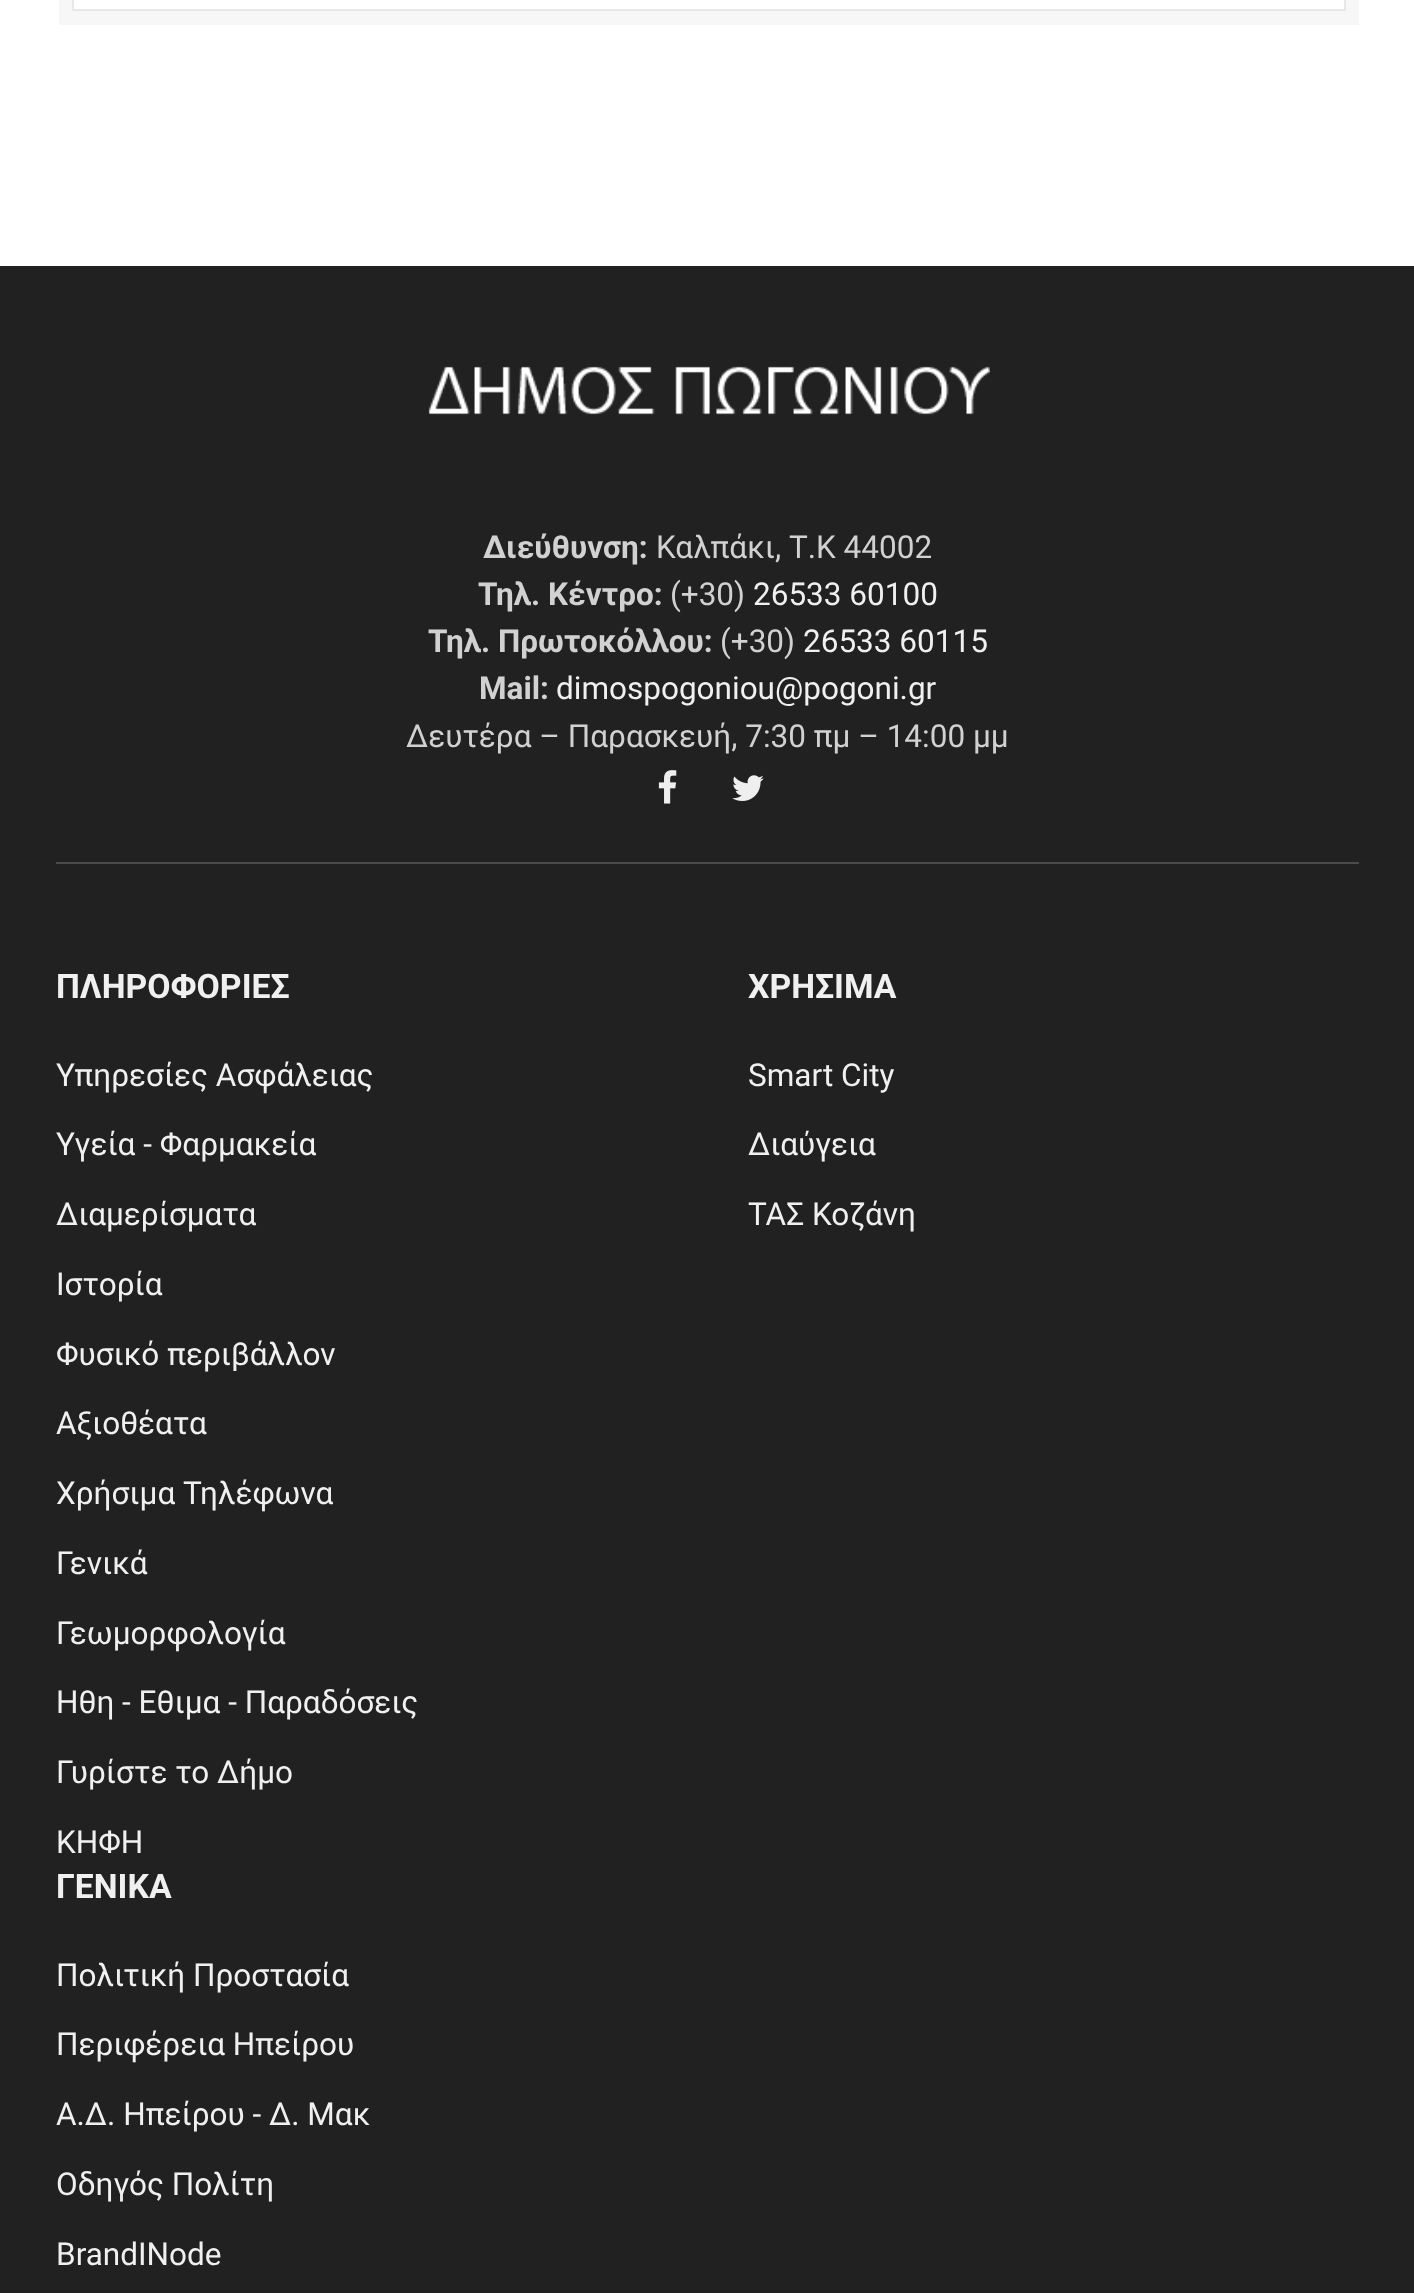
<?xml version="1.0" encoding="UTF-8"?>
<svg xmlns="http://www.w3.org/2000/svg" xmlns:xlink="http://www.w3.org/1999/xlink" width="1414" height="2293">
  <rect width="100%" height="100%" fill="#ffffff" />
  <rect x="66" y="-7" width="1286" height="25" fill="none" stroke="#f7f7f7" stroke-width="14" />
  <rect x="73" y="-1" width="1272" height="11" fill="none" stroke="#e8e8e8" stroke-width="2" />
  <rect y="266" width="1414" height="2027" fill="#212121" />
  <image x="428" y="366" width="562" height="49" xlink:href="image1.png" />
  <image x="658" y="770" width="19" height="34" xlink:href="image2.png" />
  <image x="732" y="775" width="32" height="26" xlink:href="image3.png" />
  <rect x="56" y="862" width="1303" height="2" fill="#4b4b4b" />
  <text x="483" y="558" style="font-family: Roboto; font-size: 31.5px; font-weight: bold; fill: #d1d1d1">Διεύθυνση:</text>
  <text x="656" y="558" style="font-family: Roboto; font-size: 31.5px; fill: #d1d1d1">Καλπάκι, Τ.Κ 44002</text>
  <text x="478" y="605" style="font-family: Roboto; font-size: 31.5px; font-weight: bold; fill: #d1d1d1">Τηλ. Κέντρο:</text>
  <text x="670" y="605" style="font-family: Roboto; font-size: 31.5px; fill: #d1d1d1">(+30)</text>
  <text x="753" y="605" style="font-family: Roboto; font-size: 31.5px; fill: #f0f0f0">26533 60100</text>
  <text x="428" y="652" style="font-family: Roboto; font-size: 31.5px; font-weight: bold; fill: #d1d1d1">Τηλ. Πρωτοκόλλου:</text>
  <text x="720" y="652" style="font-family: Roboto; font-size: 31.5px; fill: #d1d1d1">(+30)</text>
  <text x="803" y="652" style="font-family: Roboto; font-size: 31.5px; fill: #f0f0f0">26533 60115</text>
  <text x="479" y="699" style="font-family: Roboto; font-size: 31.5px; font-weight: bold; fill: #d1d1d1">Mail:</text>
  <text x="556" y="699" style="font-family: Roboto; font-size: 31.5px; fill: #f0f0f0">dimospogoniou@pogoni.gr</text>
  <text x="406" y="747" style="font-family: Roboto; font-size: 31.5px; fill: #d1d1d1">Δευτέρα – Παρασκευή, 7:30 πμ – 14:00 μμ</text>
  <text x="56" y="998" style="font-family: Roboto; font-size: 33.75px; font-weight: bold; fill: #f0f0f0">ΠΛΗΡΟΦΟΡΙΕΣ</text>
  <text x="56" y="1086" style="font-family: Roboto; font-size: 31.5px; fill: #f0f0f0">Υπηρεσίες Ασφάλειας</text>
  <text x="56" y="1155" style="font-family: Roboto; font-size: 31.5px; fill: #f0f0f0">Υγεία - Φαρμακεία</text>
  <text x="56" y="1225" style="font-family: Roboto; font-size: 31.5px; fill: #f0f0f0">Διαμερίσματα</text>
  <text x="56" y="1295" style="font-family: Roboto; font-size: 31.5px; fill: #f0f0f0">Ιστορία</text>
  <text x="56" y="1365" style="font-family: Roboto; font-size: 31.5px; fill: #f0f0f0">Φυσικό περιβάλλον</text>
  <text x="56" y="1434" style="font-family: Roboto; font-size: 31.5px; fill: #f0f0f0">Αξιοθέατα</text>
  <text x="56" y="1504" style="font-family: Roboto; font-size: 31.5px; fill: #f0f0f0">Χρήσιμα Τηλέφωνα</text>
  <text x="56" y="1574" style="font-family: Roboto; font-size: 31.5px; fill: #f0f0f0">Γενικά</text>
  <text x="56" y="1644" style="font-family: Roboto; font-size: 31.5px; fill: #f0f0f0">Γεωμορφολογία</text>
  <text x="56" y="1713" style="font-family: Roboto; font-size: 31.5px; fill: #f0f0f0">Ηθη - Εθιμα - Παραδόσεις</text>
  <text x="56" y="1783" style="font-family: Roboto; font-size: 31.5px; fill: #f0f0f0">Γυρίστε το Δήμο</text>
  <text x="56" y="1853" style="font-family: Roboto; font-size: 31.5px; fill: #f0f0f0">ΚΗΦΗ</text>
  <text x="748" y="998" style="font-family: Roboto; font-size: 33.75px; font-weight: bold; fill: #f0f0f0">ΧΡΗΣΙΜΑ</text>
  <text x="748" y="1086" style="font-family: Roboto; font-size: 31.5px; fill: #f0f0f0">Smart City</text>
  <text x="748" y="1155" style="font-family: Roboto; font-size: 31.5px; fill: #f0f0f0">Διαύγεια</text>
  <text x="748" y="1225" style="font-family: Roboto; font-size: 31.5px; fill: #f0f0f0">ΤΑΣ Κοζάνη</text>
  <text x="56" y="1898" style="font-family: Roboto; font-size: 33.75px; font-weight: bold; fill: #f0f0f0">ΓΕΝΙΚΑ</text>
  <text x="56" y="1986" style="font-family: Roboto; font-size: 31.5px; fill: #f0f0f0">Πολιτική Προστασία</text>
  <text x="56" y="2055" style="font-family: Roboto; font-size: 31.5px; fill: #f0f0f0">Περιφέρεια Ηπείρου</text>
  <text x="56" y="2125" style="font-family: Roboto; font-size: 31.5px; fill: #f0f0f0">Α.Δ. Ηπείρου - Δ. Μακ</text>
  <text x="56" y="2195" style="font-family: Roboto; font-size: 31.5px; fill: #f0f0f0">Οδηγός Πολίτη</text>
  <text x="56" y="2265" style="font-family: Roboto; font-size: 31.5px; fill: #f0f0f0">BrandINode</text>
</svg>
